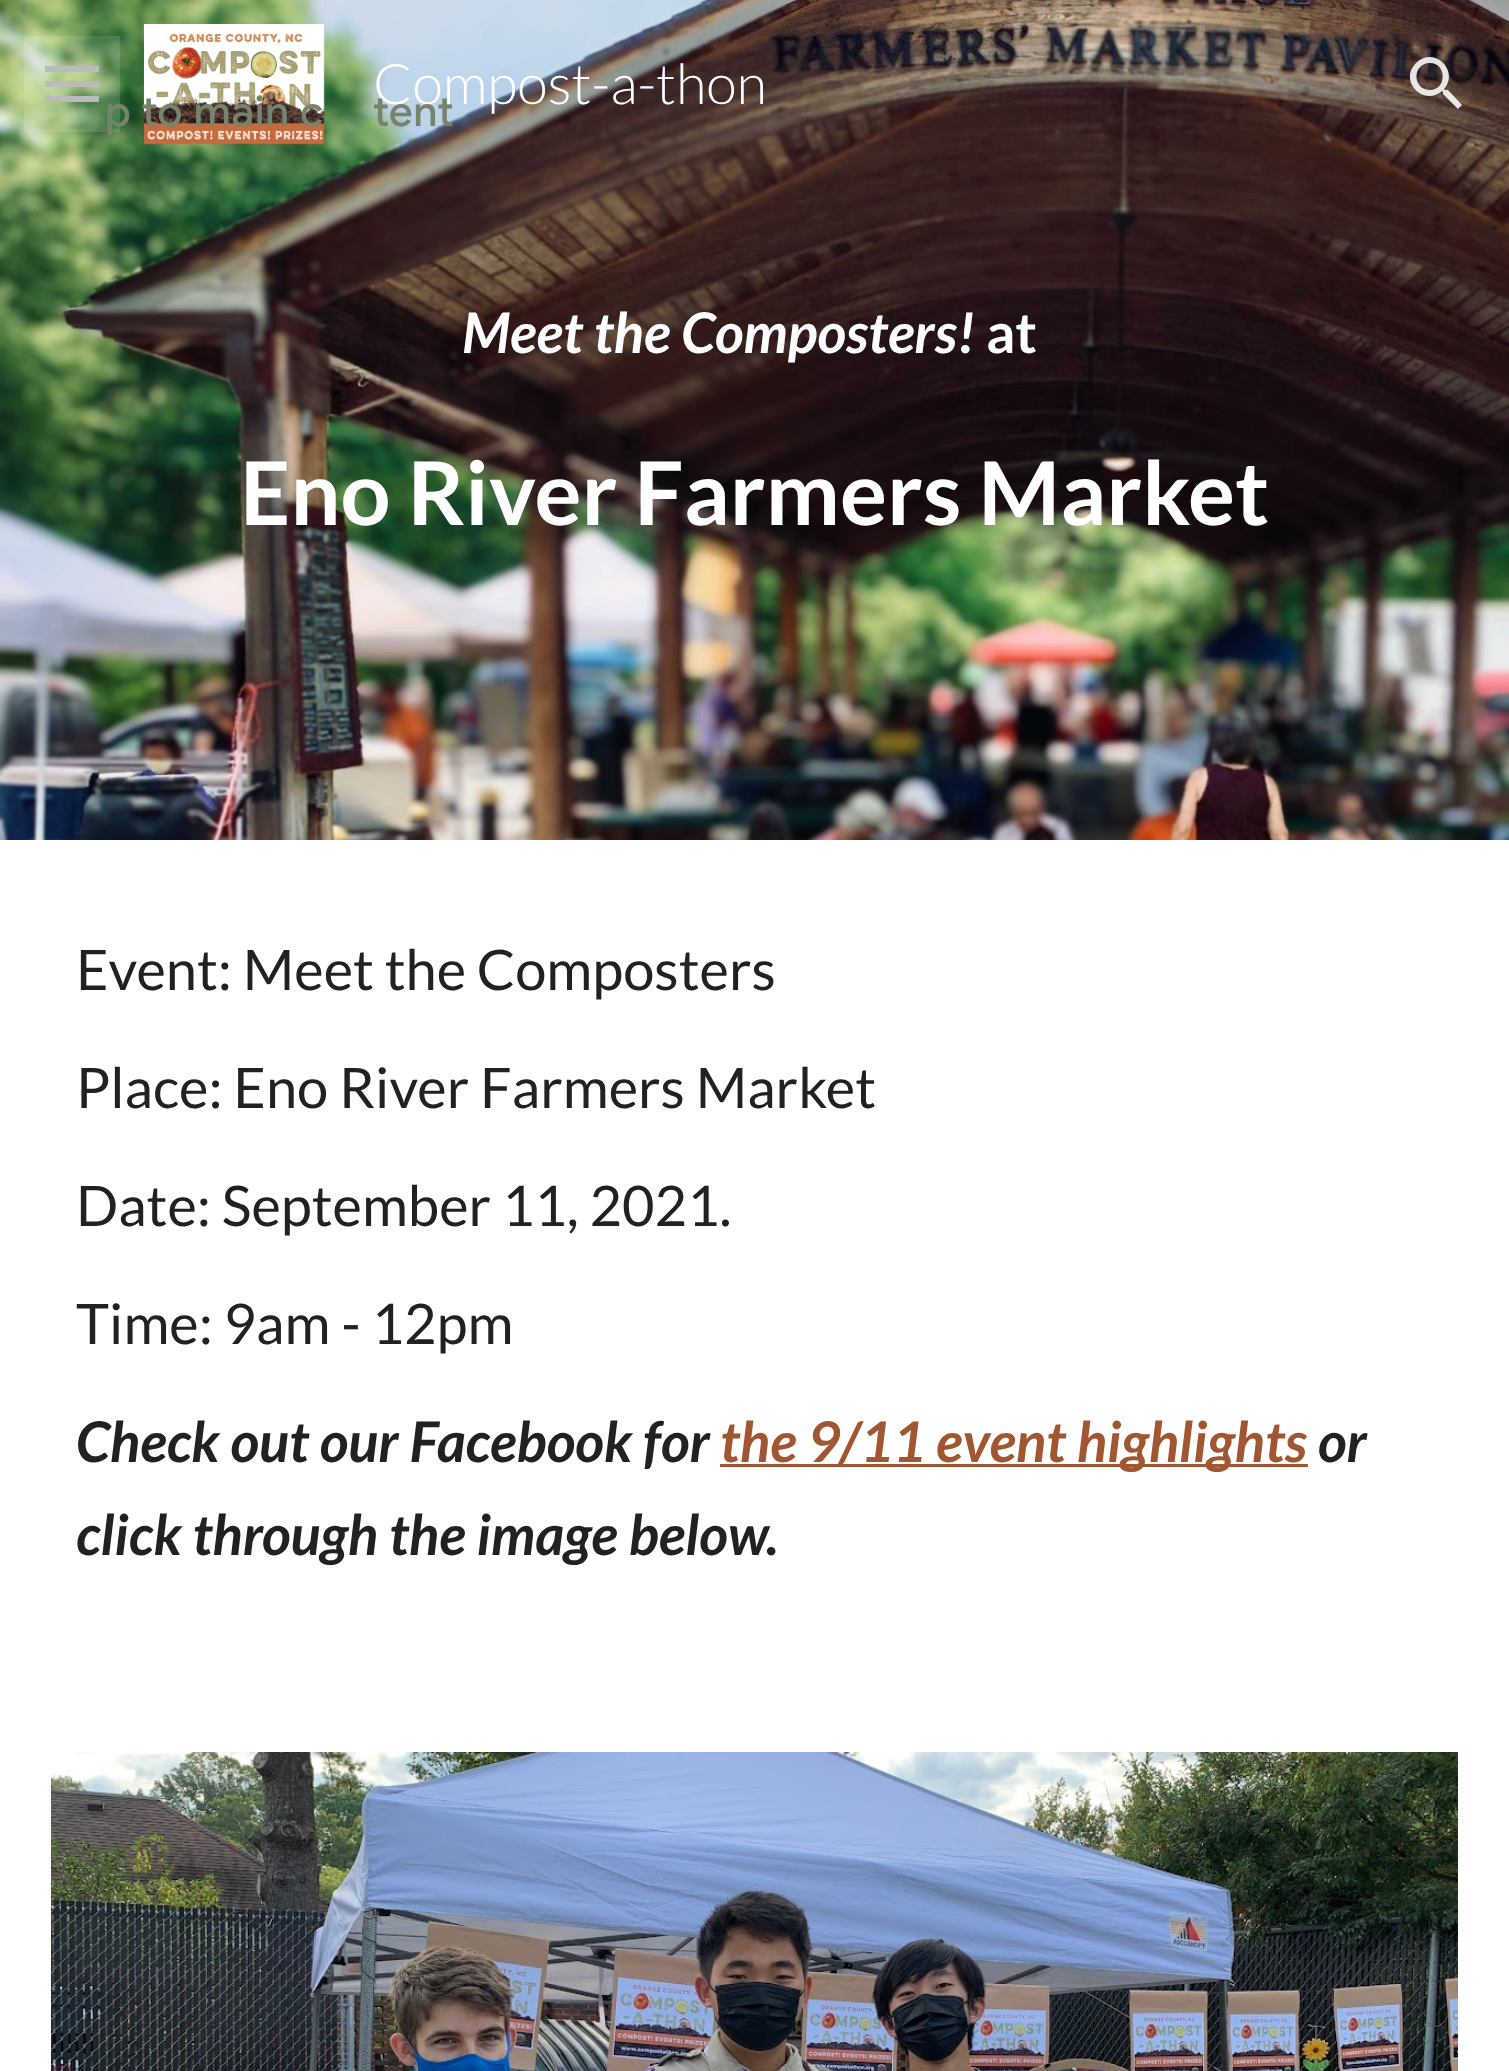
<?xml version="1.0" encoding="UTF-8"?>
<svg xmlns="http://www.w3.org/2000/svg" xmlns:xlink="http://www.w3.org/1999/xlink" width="1509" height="2071">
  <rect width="100%" height="100%" fill="#ffffff" />
  <image x="0" y="0" width="1509" height="840" xlink:href="image2.png" />
  <rect x="45" y="66" width="54" height="6" fill="#b2b2b2" />
  <rect x="45" y="81" width="54" height="6" fill="#b2b2b2" />
  <rect x="45" y="96" width="54" height="6" fill="#b2b2b2" />
  <rect x="24" y="36" width="96" height="96" fill="#ffffff" fill-opacity="0.12" />
  <image x="143" y="23" width="182" height="122" xlink:href="image1.png" />
  <path d="M 1448 90 h -3 l -1 -1 c 16 -18 -10 -44 -28 -26 c -18 18 8 44 26 28 l 1 1 v 2 l 15 15 l 4 -4 z m -18 0 c -18 0 -18 -27 0 -27 c 17 0 17 27 0 27 z" fill="#ffffff" fill-opacity="0.87" />
  <rect x="720" y="1464" width="141" height="3" fill="#a05630" />
  <rect x="861" y="1464" width="447" height="3" fill="#a05630" />
  <image x="51" y="1752" width="1407" height="319" xlink:href="image3.png" />
  <text x="373" y="104" style="font-family: Lato; font-size: 56px; font-weight: 300; fill: #ffffff">Compost-a-thon</text>
  <text x="462" y="353" style="font-family: Lato; font-size: 56px; font-weight: bold; font-style: italic; fill: #ffffff">Meet the Composters!</text>
  <text x="986" y="353" style="font-family: Lato; font-size: 56px; font-weight: bold; fill: #ffffff">at</text>
  <text x="240" y="525" style="font-family: Lato; font-size: 88px; font-weight: bold; fill: #ffffff">Eno River Farmers Market</text>
  <text x="76" y="990" style="font-family: Lato; font-size: 56px; fill: #212121">Event: Meet the Composters</text>
  <text x="76" y="1108" style="font-family: Lato; font-size: 56px; fill: #212121">Place: Eno River Farmers Market</text>
  <text x="76" y="1226" style="font-family: Lato; font-size: 56px; fill: #212121">Date: September 11, 2021.</text>
  <text x="76" y="1344" style="font-family: Lato; font-size: 56px; fill: #212121">Time: 9am - 12pm</text>
  <text x="76" y="1462" style="font-family: Lato; font-size: 56px; font-weight: bold; font-style: italic; fill: #212121">Check out our Facebook for</text>
  <text x="720" y="1462" style="font-family: Lato; font-size: 56px; font-weight: bold; font-style: italic; fill: #a05630">the 9/11</text>
  <text x="936" y="1462" style="font-family: Lato; font-size: 56px; font-weight: bold; font-style: italic; fill: #a05630">event highlights</text>
  <text x="1318" y="1462" style="font-family: Lato; font-size: 56px; font-weight: bold; font-style: italic; fill: #212121">or</text>
  <text x="76" y="1555" style="font-family: Lato; font-size: 56px; font-weight: bold; font-style: italic; fill: #212121">click through the image below.</text>
  <text x="105" y="126" style="font-family: Google Sans; font-size: 42px; font-weight: 500; letter-spacing: 0.5px; fill: #77836c">p to main c</text>
  <text x="373" y="126" style="font-family: Google Sans; font-size: 42px; font-weight: 500; letter-spacing: 0.5px; fill: #77836c">tent</text>
</svg>
